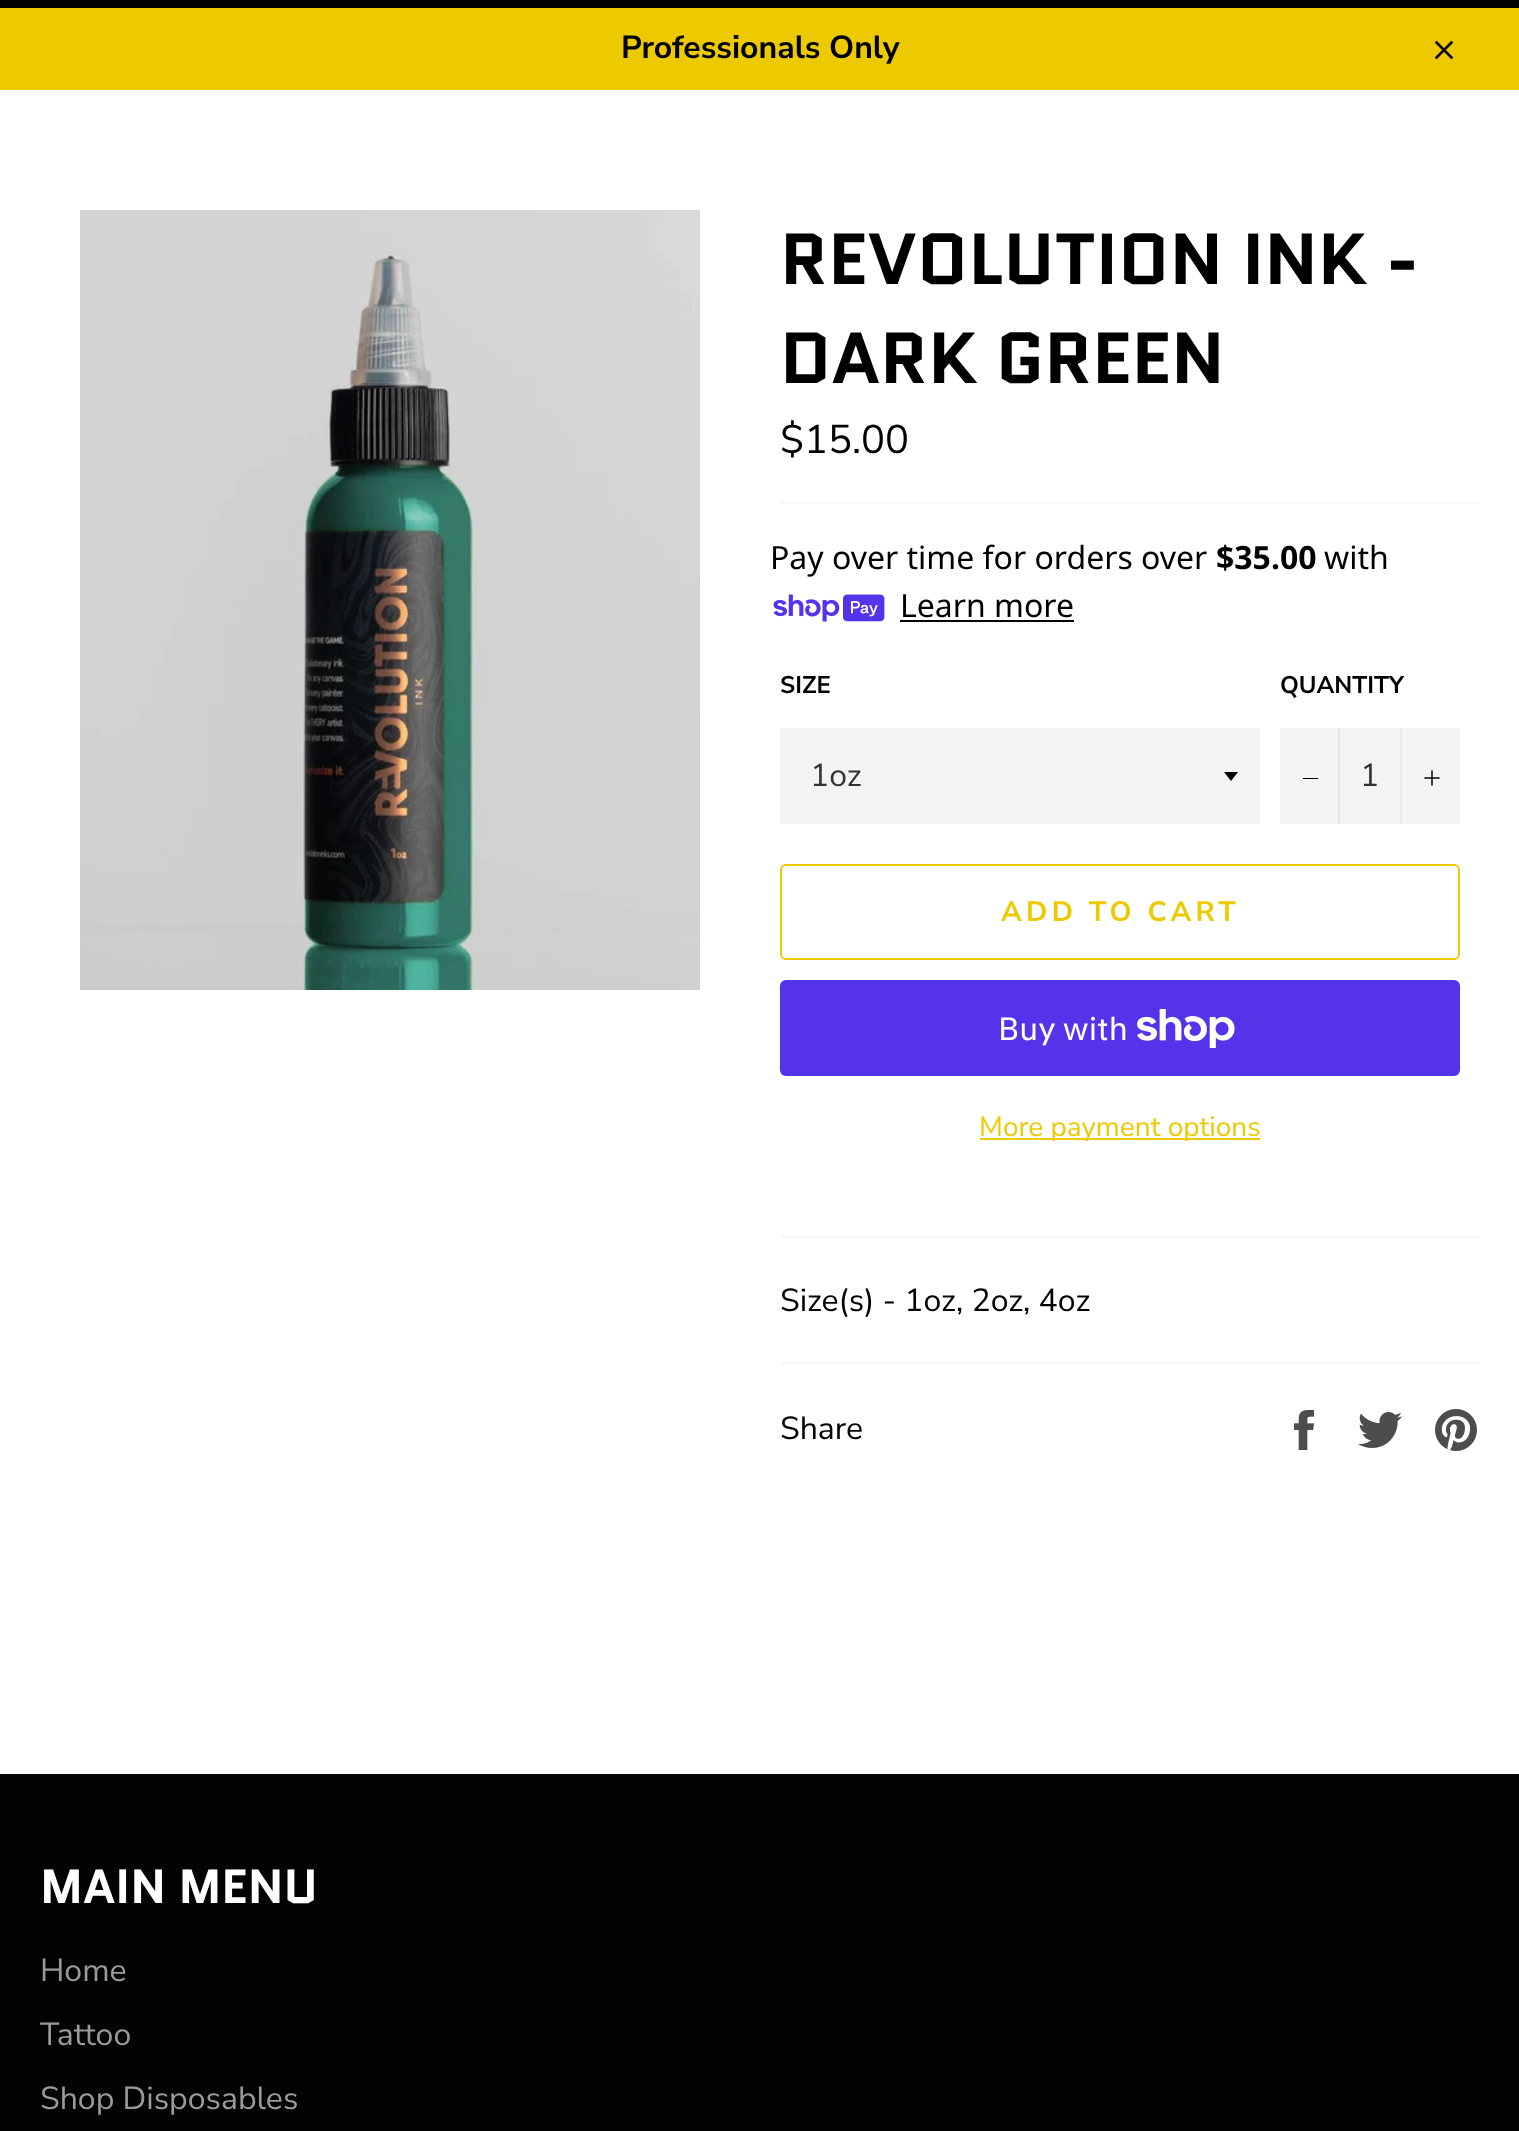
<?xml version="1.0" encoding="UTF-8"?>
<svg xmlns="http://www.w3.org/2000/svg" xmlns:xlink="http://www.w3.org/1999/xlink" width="1519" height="2131">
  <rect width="100%" height="100%" fill="#edca00" />
  <rect width="1519" height="8" fill="#030303" />
  <image x="1434" y="40" width="20" height="20" xlink:href="image1.png" />
  <rect y="90" width="1519" height="1684" fill="#ffffff" />
  <image x="80" y="210" width="620" height="780" xlink:href="image2.png" />
  <rect x="780" y="502" width="700" height="2" fill="#f7f7f7" />
  <image x="773" y="594" width="112" height="28" xlink:href="image3.png" />
  <rect x="900" y="620" width="174" height="2" fill="#000000" />
  <rect x="780" y="728" width="480" height="96" fill="#f4f4f4" />
  <path d="M 1224 772 l 7 9 l 7 -9 z" fill="#000000" />
  <rect x="1280" y="728" width="180" height="96" fill="#f4f4f4" />
  <rect x="1338" y="728" width="2" height="96" fill="#e7e7e7" />
  <rect x="1303" y="778" width="15" height="1" fill="#000000" />
  <rect x="1400" y="728" width="2" height="96" fill="#e7e7e7" />
  <image x="1424" y="770" width="16" height="16" xlink:href="image4.png" />
  <rect x="781" y="865" width="678" height="94" rx="5" fill="none" stroke="#edca00" stroke-width="2" />
  <rect x="780" y="980" width="680" height="96" rx="6" fill="#5433eb" />
  <image x="1137" y="1009" width="98" height="39" xlink:href="image5.png" />
  <rect x="980" y="1138" width="280" height="2" fill="#edca00" />
  <rect x="780" y="1236" width="700" height="2" fill="#f7f7f7" />
  <rect x="780" y="1362" width="700" height="2" fill="#f7f7f7" />
  <image x="1294" y="1410" width="20" height="40" xlink:href="image6.png" />
  <image x="1358" y="1412" width="44" height="36" xlink:href="image7.png" />
  <image x="1435" y="1409" width="42" height="42" xlink:href="image8.png" />
  <rect y="1774" width="1519" height="357" fill="#030303" />
  <text x="621" y="58" style="font-family: Nunito Sans; font-size: 32px; font-weight: bold; fill: #000000">Professionals Only</text>
  <text x="780" y="284" style="font-family: Quantico; font-size: 72px; font-weight: bold; fill: #000000">REVOLUTION INK -</text>
  <text x="780" y="383" style="font-family: Quantico; font-size: 72px; font-weight: bold; fill: #000000">DARK GREEN</text>
  <text x="780" y="453" style="font-family: Nunito Sans; font-size: 40px; fill: #000000">$15.00</text>
  <text x="770" y="569" style="font-family: Noto Sans; font-size: 32px; fill: #000000">Pay over time for orders over</text>
  <text x="1216" y="569" style="font-family: Noto Sans; font-size: 32px; font-weight: bold; fill: #000000">$35.00</text>
  <text x="1324" y="569" style="font-family: Noto Sans; font-size: 32px; fill: #000000">with</text>
  <text x="900" y="617" style="font-family: Noto Sans; font-size: 32px; fill: #000000">Learn more</text>
  <text x="780" y="693" style="font-family: Nunito Sans; font-size: 24px; font-weight: bold; fill: #000000">SIZE</text>
  <text x="810" y="786" style="font-family: Nunito Sans; font-size: 32px; fill: #333333">1oz</text>
  <text x="1280" y="693" style="font-family: Nunito Sans; font-size: 24px; font-weight: bold; fill: #000000">QUANTITY</text>
  <text x="1360" y="786" style="font-family: Nunito Sans; font-size: 32px; fill: #333333">1</text>
  <text x="1001" y="921" style="font-family: Nunito Sans; font-size: 28px; font-weight: bold; letter-spacing: 4.25px; fill: #edca00">ADD TO CART</text>
  <text x="998" y="1040" style="font-family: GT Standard; font-size: 32px; fill: #ffffff">Buy with</text>
  <text x="979" y="1136" style="font-family: Nunito Sans; font-size: 28px; fill: #edca00">More payment options</text>
  <text x="780" y="1311" style="font-family: Nunito Sans; font-size: 32px; fill: #000000">Size(s) - 1oz, 2oz, 4oz</text>
  <text x="780" y="1439" style="font-family: Nunito Sans; font-size: 32px; fill: #000000">Share</text>
  <text x="40" y="1903" style="font-family: Quantico; font-size: 48px; font-weight: bold; fill: #ffffff">MAIN MENU</text>
  <text x="40" y="1981" style="font-family: Nunito Sans; font-size: 32px; fill: #9a9a9a">Home</text>
  <text x="40" y="2045" style="font-family: Nunito Sans; font-size: 32px; fill: #9a9a9a">Tattoo</text>
  <text x="40" y="2109" style="font-family: Nunito Sans; font-size: 32px; fill: #9a9a9a">Shop Disposables</text>
</svg>
